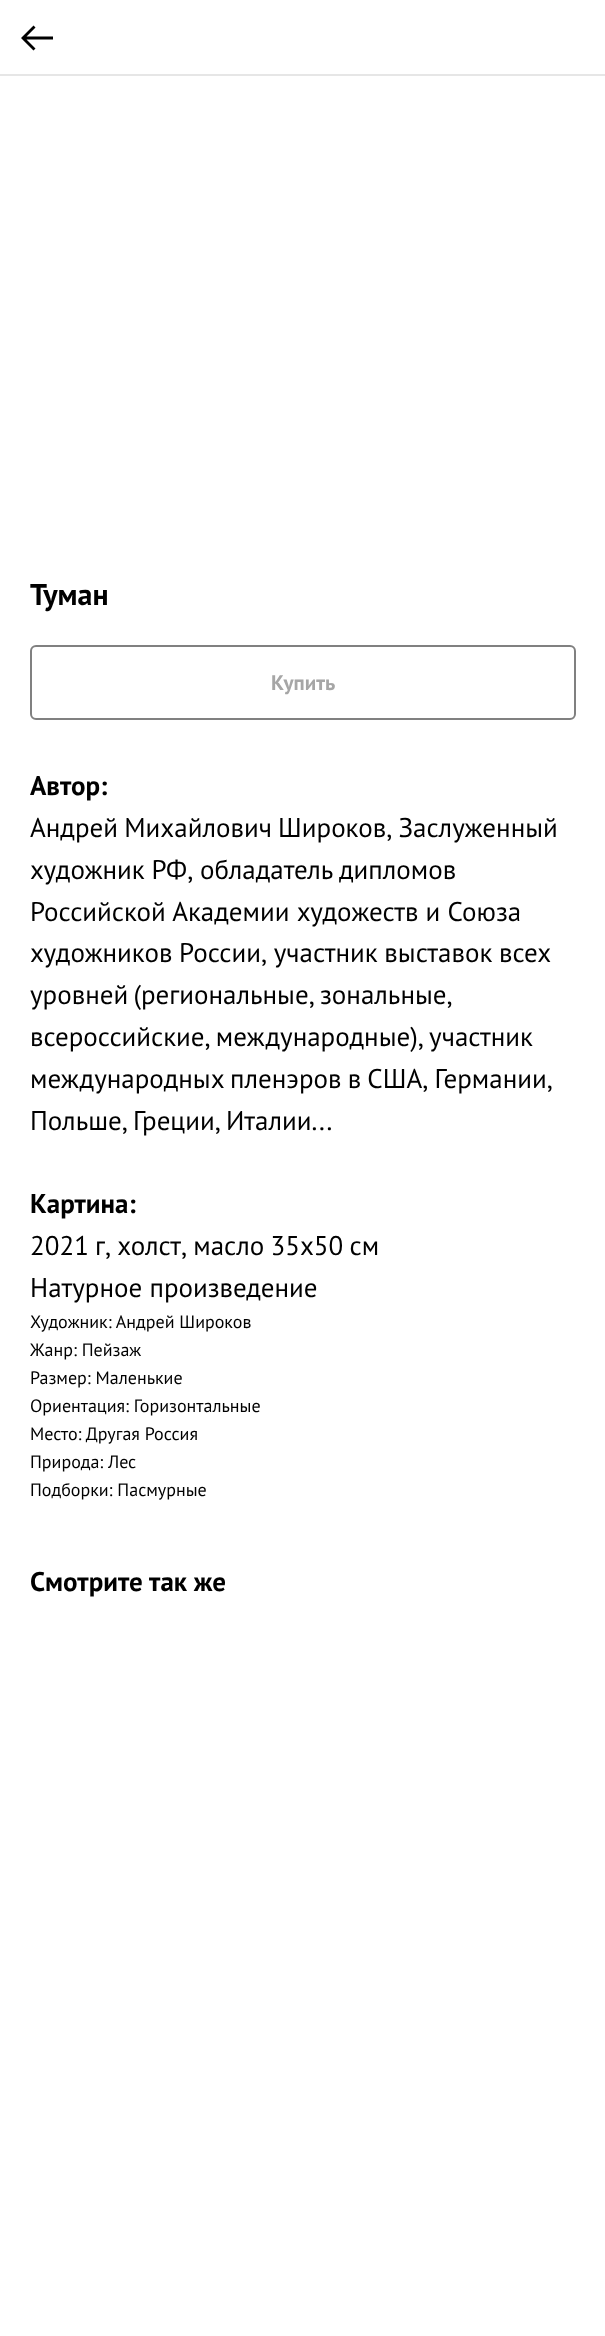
<?xml version="1.0" encoding="UTF-8"?>
<svg xmlns="http://www.w3.org/2000/svg" xmlns:xlink="http://www.w3.org/1999/xlink" width="605" height="2336">
  <rect width="100%" height="100%" fill="#ffffff" />
  <rect y="74" width="605" height="2" fill="#e6e6e6" />
  <path d="M 33.5 25.5 l 2 2 l -9 9 h 26.5 v 3 h -26.5 l 9 9 l -2 2 l -12.5 -12.5 z" fill="#000000" />
  <rect x="31" y="646" width="544" height="73" rx="5" fill="none" stroke="#808080" stroke-width="2" />
  <text x="30" y="605" style="font-family: PT Sans; font-size: 30px; font-weight: bold; fill: #000000">Туман</text>
  <text x="271" y="690" style="font-family: PT Sans; font-size: 21px; font-weight: bold; fill: #a6a6a6">Купить</text>
  <text x="30" y="795" style="font-family: PT Sans; font-size: 27px; font-weight: bold; fill: #000000">Автор:</text>
  <text x="30" y="837" word-spacing="-1" style="font-family: PT Sans; font-size: 27px; fill: #000000">Андрей Михайлович Широков, Заслуженный</text>
  <text x="30" y="879" word-spacing="-0.5" style="font-family: PT Sans; font-size: 27px; fill: #000000">художник РФ, обладатель дипломов</text>
  <text x="30" y="921" style="font-family: PT Sans; font-size: 27px; fill: #000000">Российской Академии художеств и Союза</text>
  <text x="30" y="962" word-spacing="-0.5" style="font-family: PT Sans; font-size: 27px; fill: #000000">художников России, участник выставок всех</text>
  <text x="30" y="1004" word-spacing="-2" style="font-family: PT Sans; font-size: 27px; fill: #000000">уровней (региональные, зональные,</text>
  <text x="30" y="1046" word-spacing="-2" style="font-family: PT Sans; font-size: 27px; fill: #000000">всероссийские, международные), участник</text>
  <text x="30" y="1088" word-spacing="-1" style="font-family: PT Sans; font-size: 27px; fill: #000000">международных пленэров в США, Германии,</text>
  <text x="30" y="1130" word-spacing="-2" style="font-family: PT Sans; font-size: 27px; fill: #000000">Польше, Греции, Италии...</text>
  <text x="30" y="1213" style="font-family: PT Sans; font-size: 27px; font-weight: bold; fill: #000000">Картина:</text>
  <text x="30" y="1255" word-spacing="-1" style="font-family: PT Sans; font-size: 27px; fill: #000000">2021 г, холст, масло 35х50 см</text>
  <text x="30" y="1297" style="font-family: PT Sans; font-size: 27px; fill: #000000">Натурное произведение</text>
  <text x="30" y="1328" style="font-family: PT Sans; font-size: 18px; fill: #000000">Художник: Андрей Широков</text>
  <text x="30" y="1356" style="font-family: PT Sans; font-size: 18px; fill: #000000">Жанр: Пейзаж</text>
  <text x="30" y="1384" style="font-family: PT Sans; font-size: 18px; fill: #000000">Размер: Маленькие</text>
  <text x="30" y="1412" style="font-family: PT Sans; font-size: 18px; fill: #000000">Ориентация: Горизонтальные</text>
  <text x="30" y="1440" style="font-family: PT Sans; font-size: 18px; fill: #000000">Место: Другая Россия</text>
  <text x="30" y="1468" style="font-family: PT Sans; font-size: 18px; fill: #000000">Природа: Лес</text>
  <text x="30" y="1496" style="font-family: PT Sans; font-size: 18px; fill: #000000">Подборки: Пасмурные</text>
  <text x="30" y="1591" style="font-family: PT Sans; font-size: 27px; font-weight: bold; fill: #000000">Смотрите так же</text>
</svg>
